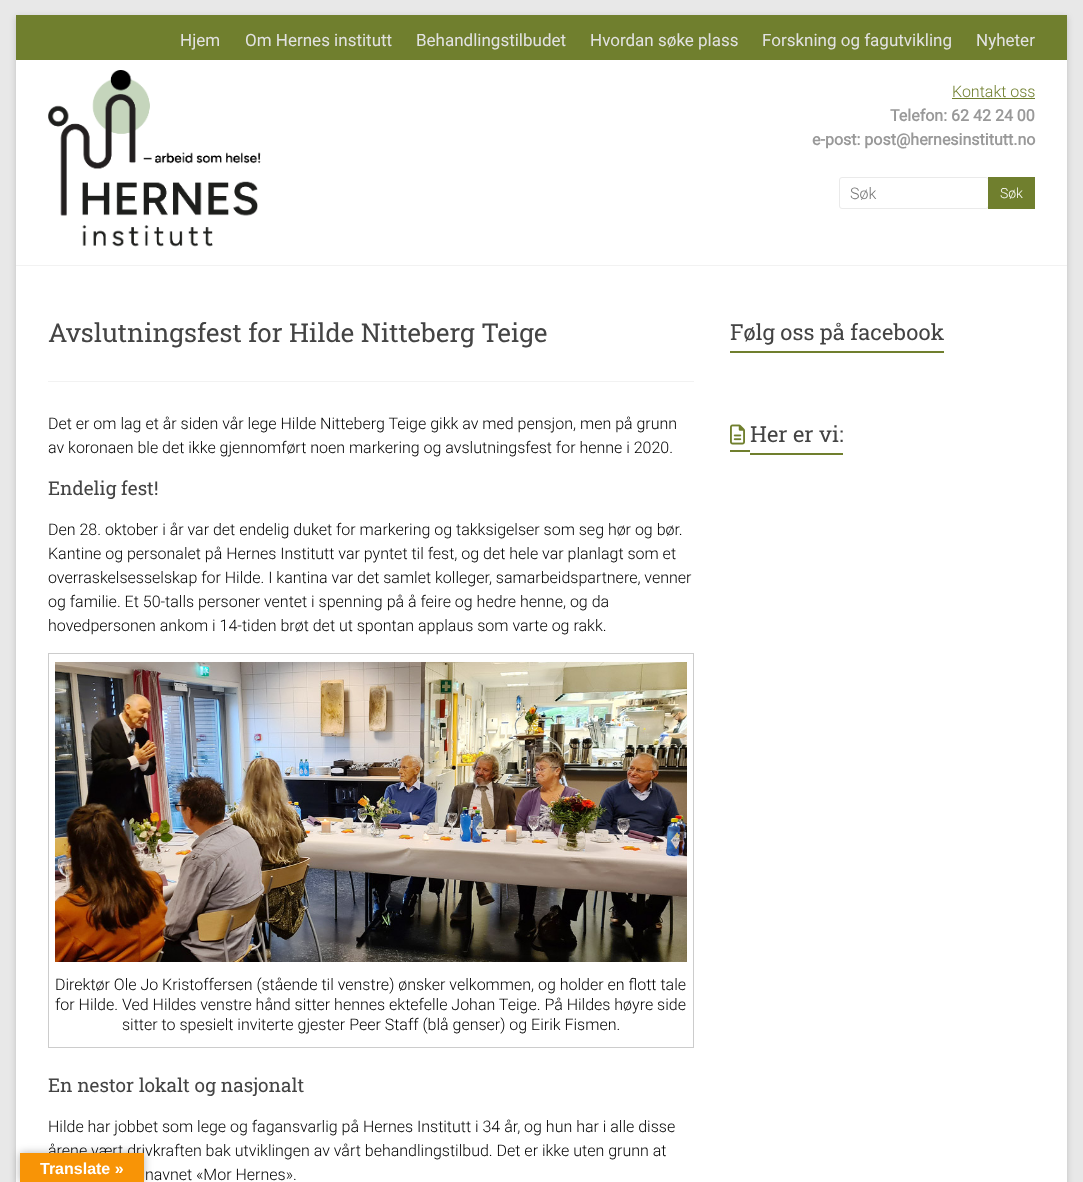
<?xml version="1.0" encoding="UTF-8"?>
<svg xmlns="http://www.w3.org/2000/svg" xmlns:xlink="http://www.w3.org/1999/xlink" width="1083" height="1182">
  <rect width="100%" height="100%" fill="#e8e8e8" />
  <rect x="16" y="17" width="1051" height="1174" fill="#646464" fill-opacity="0.3" filter="blur(3px)" />
  <rect x="16" y="60" width="1051" height="1122" fill="#ffffff" />
  <rect x="16" y="15" width="1051" height="45" fill="#707f2e" />
  <rect x="16" y="265" width="1051" height="1" fill="#f2f2f2" />
  <image x="48" y="70" width="213" height="177" xlink:href="image1.png" />
  <rect x="952" y="98" width="83" height="1" fill="#707f2e" />
  <rect x="839.5" y="177.5" width="149" height="31" rx="2.5" fill="none" stroke="#eaeaea" />
  <rect x="988" y="177" width="47" height="32" fill="#707f2e" />
  <rect x="48" y="381" width="646" height="1" fill="#f2f2f2" />
  <rect x="48.5" y="653.5" width="645" height="394" fill="none" stroke="#cccccc" />
  <image x="55" y="662" width="632" height="300" xlink:href="image2.png" />
  <rect x="730" y="351" width="214" height="2" fill="#707f2e" />
  <image x="730" y="424" width="15" height="21" xlink:href="image3.png" />
  <rect x="730" y="450" width="20" height="2" fill="#707f2e" />
  <rect x="750" y="453" width="93" height="2" fill="#707f2e" />
  <rect x="20" y="1153" width="124" height="29" fill="#000000" fill-opacity="0.3" filter="blur(4.5px)" />
  <text x="180" y="46" style="font-family: Roboto; font-size: 17px; fill: #e2e2e2">Hjem</text>
  <text x="245" y="46" style="font-family: Roboto; font-size: 17px; fill: #e2e2e2">Om Hernes institutt</text>
  <text x="416" y="46" style="font-family: Roboto; font-size: 17px; fill: #e2e2e2">Behandlingstilbudet</text>
  <text x="590" y="46" style="font-family: Roboto; font-size: 17px; fill: #e2e2e2">Hvordan søke plass</text>
  <text x="762" y="46" style="font-family: Roboto; font-size: 17px; fill: #e2e2e2">Forskning og fagutvikling</text>
  <text x="976" y="46" style="font-family: Roboto; font-size: 17px; fill: #e2e2e2">Nyheter</text>
  <text x="952" y="97" style="font-family: Roboto; font-size: 16px; font-weight: 300; fill: #707f2e">Kontakt oss</text>
  <text x="890" y="121" style="font-family: Roboto; font-size: 16px; font-weight: bold; fill: #999999">Telefon: 62 42 24 00</text>
  <text x="812" y="145" style="font-family: Roboto; font-size: 16px; font-weight: bold; fill: #999999">e-post: post@hernesinstitutt.no</text>
  <text x="850" y="199" style="font-family: Roboto; font-size: 16px; font-weight: 300; fill: #757575">Søk</text>
  <text x="1000" y="198" style="font-family: Roboto; font-size: 14px; font-weight: 300; fill: #ffffff">Søk</text>
  <text x="48" y="342" style="font-family: Roboto Slab; font-size: 26px; fill: #444444">Avslutningsfest for Hilde Nitteberg Teige</text>
  <text x="48" y="429" style="font-family: Roboto; font-size: 16px; font-weight: 300; fill: #000000">Det er om lag et år siden vår lege Hilde Nitteberg Teige gikk av med pensjon, men på grunn</text>
  <text x="48" y="453" style="font-family: Roboto; font-size: 16px; font-weight: 300; fill: #000000">av koronaen ble det ikke gjennomført noen markering og avslutningsfest for henne i 2020.</text>
  <text x="48" y="495" style="font-family: Roboto Slab; font-size: 19px; fill: #444444">Endelig fest!</text>
  <text x="48" y="535" style="font-family: Roboto; font-size: 16px; font-weight: 300; fill: #000000">Den 28. oktober i år var det endelig duket for markering og takksigelser som seg hør og bør.</text>
  <text x="48" y="559" style="font-family: Roboto; font-size: 16px; font-weight: 300; fill: #000000">Kantine og personalet på Hernes Institutt var pyntet til fest, og det hele var planlagt som et</text>
  <text x="48" y="583" style="font-family: Roboto; font-size: 16px; font-weight: 300; fill: #000000">overraskelsesselskap for Hilde. I kantina var det samlet kolleger, samarbeidspartnere, venner</text>
  <text x="48" y="607" style="font-family: Roboto; font-size: 16px; font-weight: 300; fill: #000000">og familie. Et 50-talls personer ventet i spenning på å feire og hedre henne, og da</text>
  <text x="48" y="631" style="font-family: Roboto; font-size: 16px; font-weight: 300; fill: #000000">hovedpersonen ankom i 14-tiden brøt det ut spontan applaus som varte og rakk.</text>
  <text x="55" y="990" style="font-family: Roboto; font-size: 16px; font-weight: 300; fill: #000000">Direktør Ole Jo Kristoffersen (stående til venstre) ønsker velkommen, og holder en flott tale</text>
  <text x="55" y="1010" style="font-family: Roboto; font-size: 16px; font-weight: 300; fill: #000000">for Hilde. Ved Hildes venstre hånd sitter hennes ektefelle Johan Teige. På Hildes høyre side</text>
  <text x="122" y="1030" style="font-family: Roboto; font-size: 16px; font-weight: 300; fill: #000000">sitter to spesielt inviterte gjester Peer Staff (blå genser) og Eirik Fismen.</text>
  <text x="48" y="1092" style="font-family: Roboto Slab; font-size: 19px; fill: #444444">En nestor lokalt og nasjonalt</text>
  <text x="48" y="1132" style="font-family: Roboto; font-size: 16px; font-weight: 300; fill: #000000">Hilde har jobbet som lege og fagansvarlig på Hernes Institutt i 34 år, og hun har i alle disse</text>
  <text x="48" y="1156" style="font-family: Roboto; font-size: 16px; font-weight: 300; fill: #000000">årene vært drivkraften bak utviklingen av vårt behandlingstilbud. Det er ikke uten grunn at</text>
  <text x="145" y="1180" style="font-family: Roboto; font-size: 16px; font-weight: 300; fill: #000000">navnet «Mor Hernes».</text>
  <text x="730" y="340" style="font-family: Roboto Slab; font-size: 22px; fill: #444444">Følg oss på facebook</text>
  <text x="750" y="442" style="font-family: Roboto Slab; font-size: 22px; fill: #444444">Her er vi:</text>
  <rect x="20" y="1153" width="124" height="29" fill="#f89406" />
  <text x="40" y="1174" style="font-family: Liberation Sans; font-size: 16px; font-weight: bold; fill: #ffffff">Translate »</text>
</svg>
